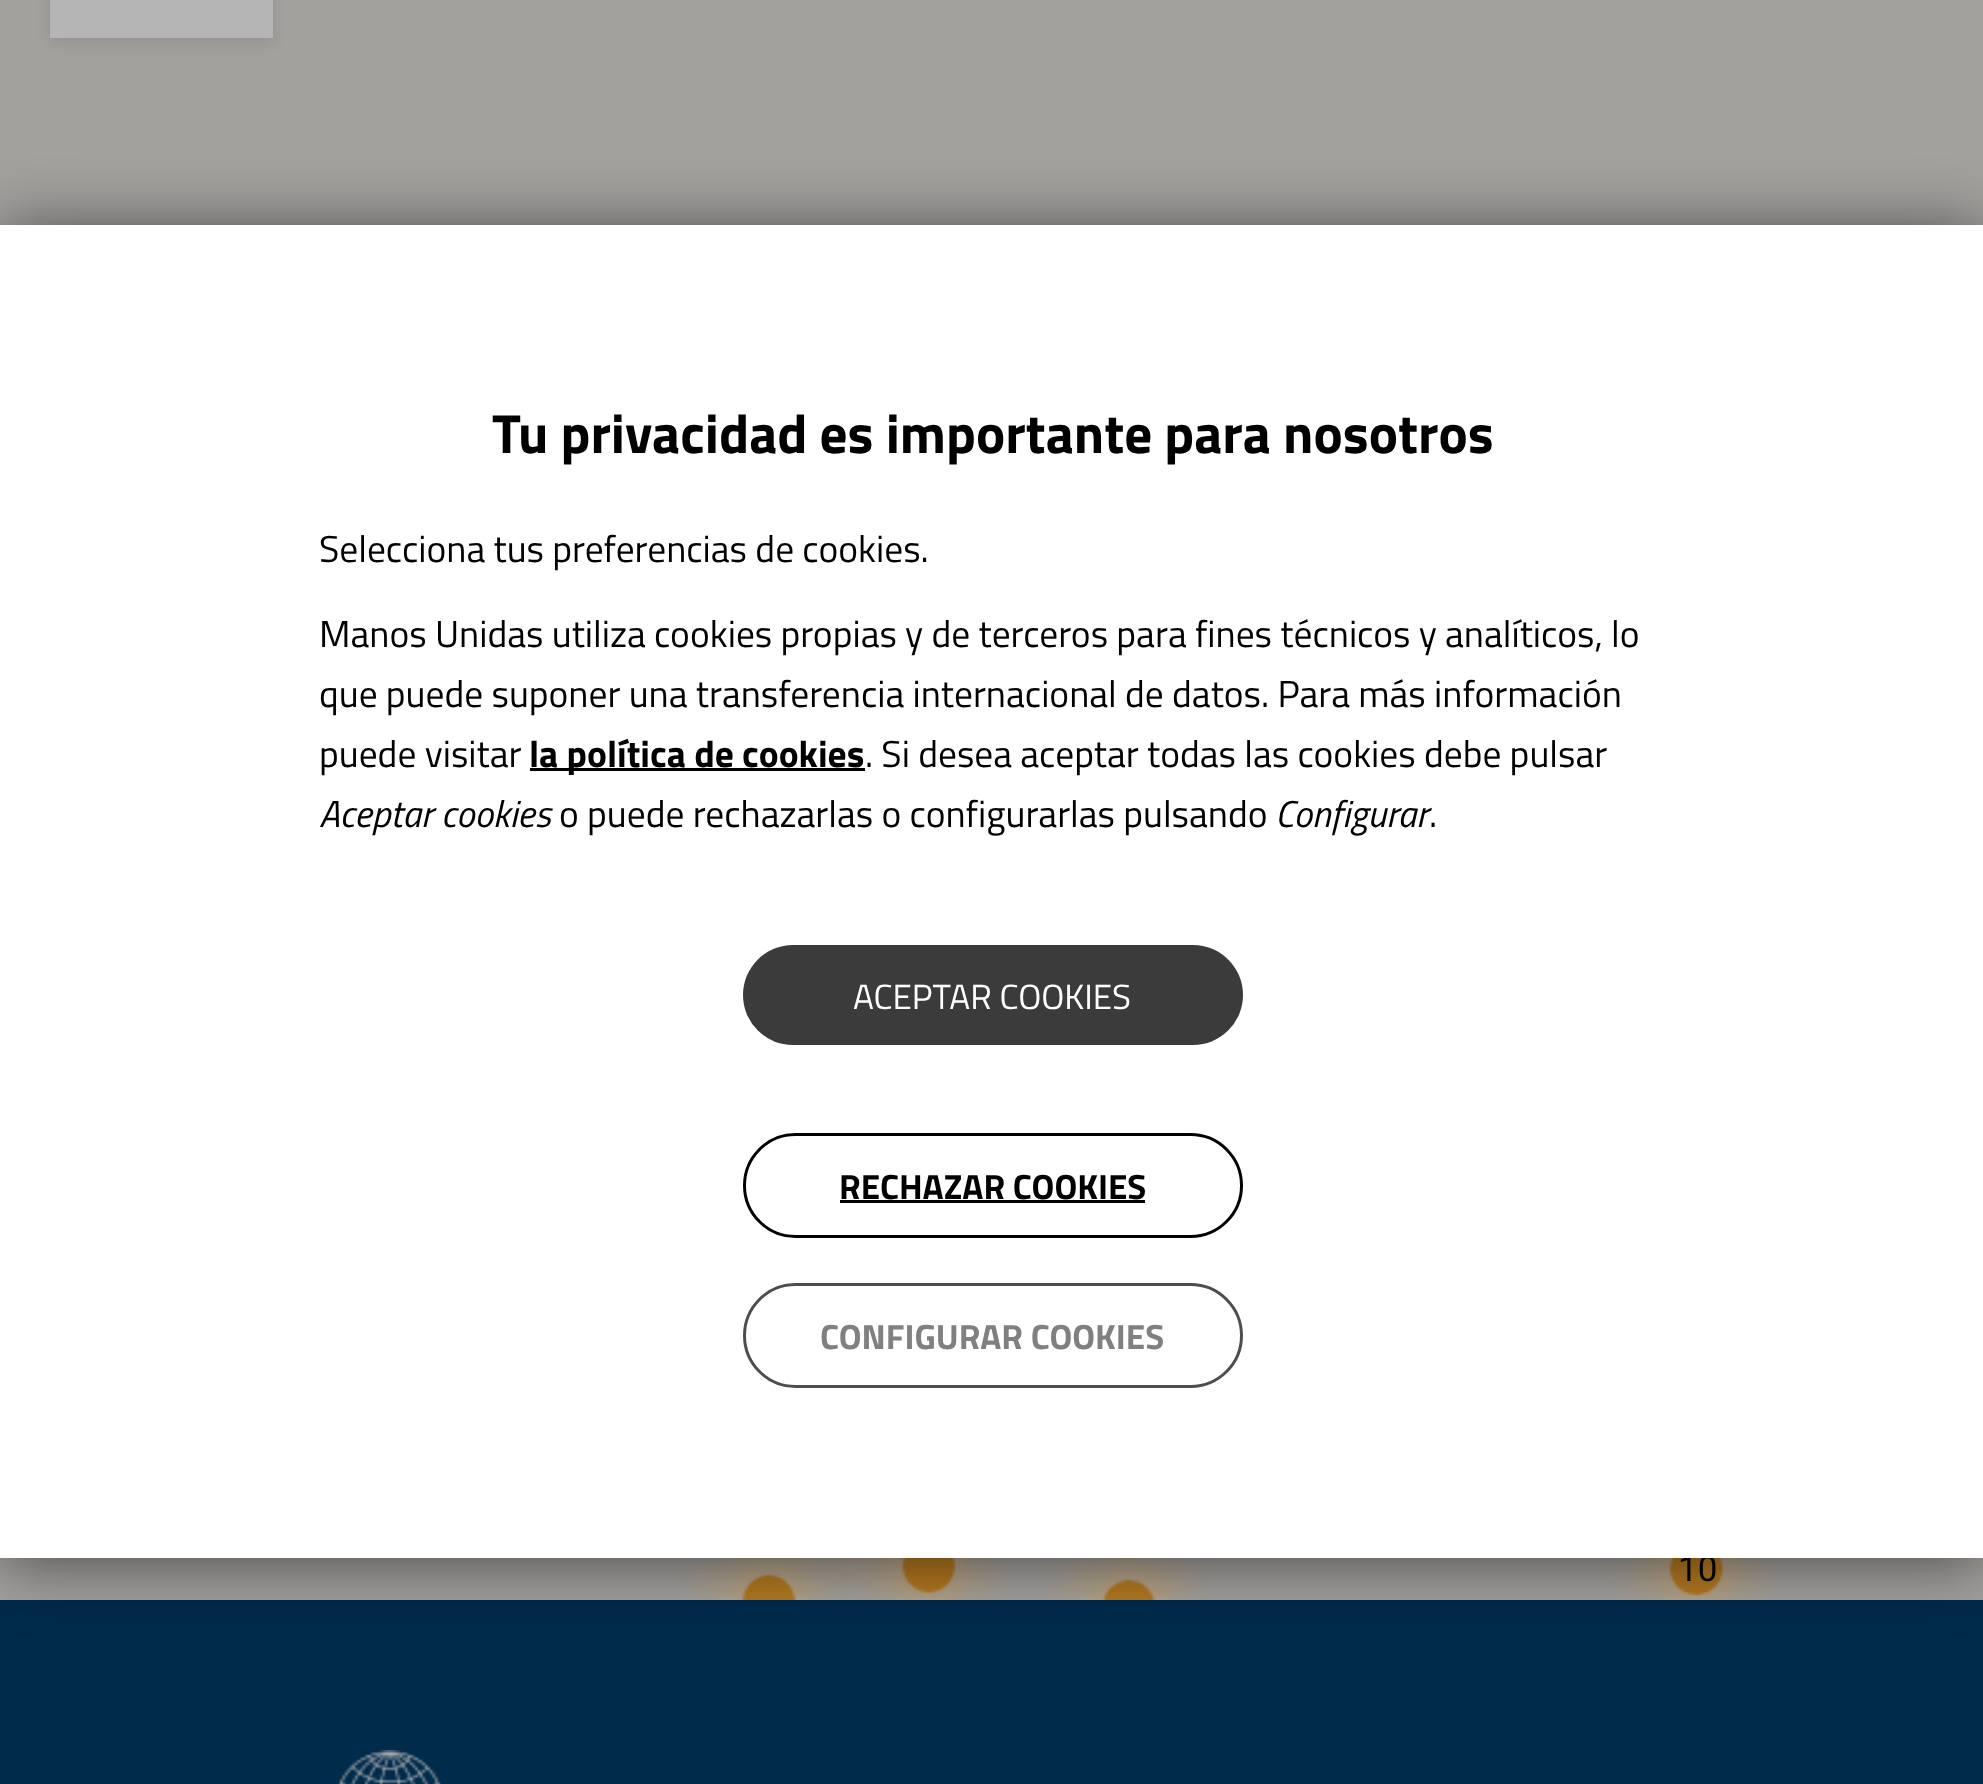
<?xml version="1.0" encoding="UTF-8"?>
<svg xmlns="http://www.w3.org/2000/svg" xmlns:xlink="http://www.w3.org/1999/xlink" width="1983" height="1784">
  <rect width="100%" height="100%" fill="#012b4b" />
  <rect width="1983" height="1600" fill="#a3a19e" />
  <rect x="50" y="-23" width="223" height="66" fill="#000000" fill-opacity="0.09" filter="blur(7.5px)" />
  <rect x="50" width="223" height="38" fill="#b5b5b5" />
  <image x="765" y="1558" width="143" height="28" xlink:href="image2.png" />
  <image x="840" y="1558" width="167" height="42" xlink:href="image3.png" />
  <image x="684" y="1558" width="163" height="42" xlink:href="image1.png" />
  <image x="1044" y="1558" width="163" height="42" xlink:href="image4.png" />
  <image x="1611" y="1558" width="163" height="42" xlink:href="image5.png" />
  <rect y="230" width="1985" height="1333" fill="#000000" fill-opacity="0.55" filter="blur(32.5px)" />
  <image x="337" y="1750" width="104" height="34" xlink:href="image6.png" />
  <text x="1678" y="1581" style="font-family: Roboto; font-size: 35px; fill: #000000">10</text>
  <rect y="225" width="1983" height="1333" fill="#ffffff" />
  <rect x="744.5" y="1284.5" width="497" height="102" rx="51" fill="none" stroke="#4d4d4d" stroke-width="3" />
  <text x="820" y="1349" style="font-family: Titillium Web; font-size: 35px; font-weight: bold; fill: #808080">CONFIGURAR COOKIES</text>
  <rect x="744.5" y="1134.5" width="497" height="102" rx="51" fill="none" stroke="#000000" stroke-width="3" />
  <text x="839" y="1199" style="font-family: Titillium Web; font-size: 35px; font-weight: bold; fill: #000000">RECHAZAR COOKIES</text>
  <rect x="840" y="1200" width="305" height="3" fill="#000000" />
  <rect x="743" y="945" width="500" height="100" rx="50" fill="#3b3b3b" />
  <text x="853" y="1009" style="font-family: Titillium Web; font-size: 35px; fill: #ffffff">ACEPTAR COOKIES</text>
  <text x="1275" y="827" style="font-family: Titillium Web; font-size: 37.5px; font-style: italic; fill: #000000">Configurar</text>
  <text x="1429" y="827" style="font-family: Titillium Web; font-size: 37.5px; fill: #000000">.</text>
  <text x="559" y="827" style="font-family: Titillium Web; font-size: 37.5px; fill: #000000">o puede rechazarlas o configurarlas pulsando</text>
  <text x="319" y="827" style="font-family: Titillium Web; font-size: 37.5px; font-style: italic; fill: #000000">Aceptar cookies</text>
  <text x="865" y="767" style="font-family: Titillium Web; font-size: 37.5px; fill: #000000">. Si desea aceptar todas las cookies debe pulsar</text>
  <rect x="530" y="768" width="335" height="3" fill="#000000" />
  <text x="529" y="767" style="font-family: Titillium Web; font-size: 37.5px; font-weight: bold; fill: #000000">la política de cookies</text>
  <text x="319" y="767" style="font-family: Titillium Web; font-size: 37.5px; fill: #000000">puede visitar</text>
  <text x="319" y="707" style="font-family: Titillium Web; font-size: 37.5px; fill: #000000">que puede suponer una transferencia internacional de datos. Para más información</text>
  <text x="319" y="647" style="font-family: Titillium Web; font-size: 37.5px; fill: #000000">Manos Unidas utiliza cookies propias y de terceros para fines técnicos y analíticos, lo</text>
  <text x="319" y="562" style="font-family: Titillium Web; font-size: 37.5px; fill: #000000">Selecciona tus preferencias de cookies.</text>
  <text x="492" y="453" style="font-family: Titillium Web; font-size: 55px; font-weight: bold; fill: #000000">Tu privacidad es importante para nosotros</text>
</svg>
